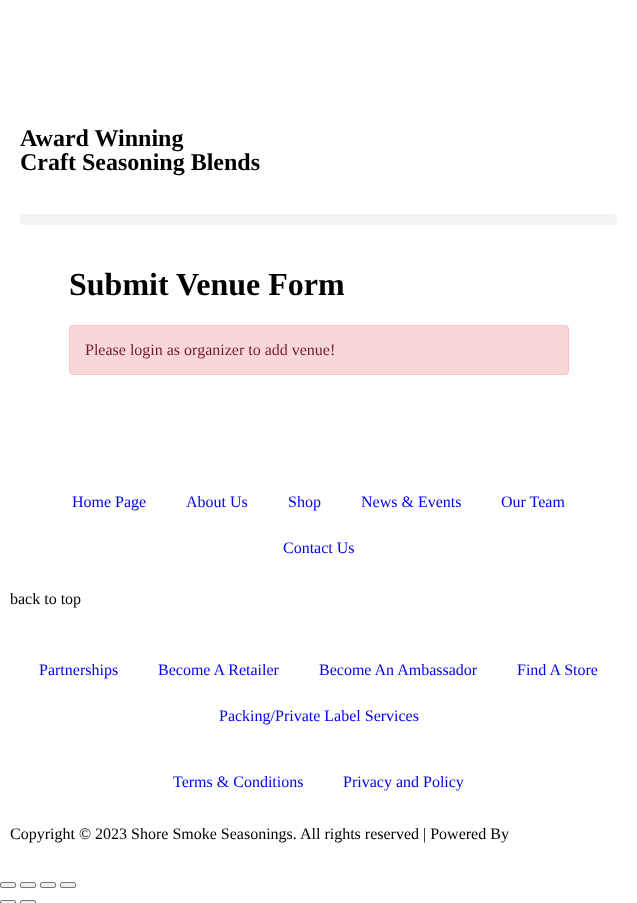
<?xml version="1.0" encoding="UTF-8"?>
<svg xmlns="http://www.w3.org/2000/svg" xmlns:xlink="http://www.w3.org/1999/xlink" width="637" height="903">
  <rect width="100%" height="100%" fill="#ffffff" />
  <rect x="20" y="214" width="597" height="11" rx="3" fill="#f2f2f2" />
  <rect x="69.5" y="325.5" width="499" height="49" rx="3.5" fill="#f8d7da" stroke="#f5c6cb" />
  <rect x="0.5" y="882.5" width="15" height="5" rx="1.5" fill="#efefef" stroke="#767676" />
  <rect x="20.5" y="882.5" width="15" height="5" rx="1.5" fill="#efefef" stroke="#767676" />
  <rect x="40.5" y="882.5" width="15" height="5" rx="1.5" fill="#efefef" stroke="#767676" />
  <rect x="60.5" y="882.5" width="15" height="5" rx="1.5" fill="#efefef" stroke="#767676" />
  <rect x="0.5" y="900.5" width="15" height="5" rx="1.5" fill="#efefef" stroke="#767676" />
  <rect x="20.5" y="900.5" width="15" height="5" rx="1.5" fill="#efefef" stroke="#767676" />
  <text x="20" y="146" style="font-family: Liberation Serif; font-size: 24px; font-weight: bold; fill: #000000">Award Winning</text>
  <text x="20" y="170" style="font-family: Liberation Serif; font-size: 24px; font-weight: bold; fill: #000000">Craft Seasoning Blends</text>
  <text x="69" y="295" style="font-family: Liberation Serif; font-size: 32px; font-weight: bold; fill: #000000">Submit Venue Form</text>
  <text x="85" y="355" style="font-family: Liberation Serif; font-size: 16px; fill: #721c24">Please login as organizer to add venue!</text>
  <text x="72" y="507" style="font-family: Liberation Serif; font-size: 16px; fill: #0000ee">Home Page</text>
  <text x="186" y="507" style="font-family: Liberation Serif; font-size: 16px; fill: #0000ee">About Us</text>
  <text x="288" y="507" style="font-family: Liberation Serif; font-size: 16px; fill: #0000ee">Shop</text>
  <text x="361" y="507" style="font-family: Liberation Serif; font-size: 16px; fill: #0000ee">News &amp; Events</text>
  <text x="501" y="507" style="font-family: Liberation Serif; font-size: 16px; fill: #0000ee">Our Team</text>
  <text x="283" y="553" style="font-family: Liberation Serif; font-size: 16px; fill: #0000ee">Contact Us</text>
  <text x="10" y="604" style="font-family: Liberation Serif; font-size: 16px; fill: #000000">back to top</text>
  <text x="39" y="675" style="font-family: Liberation Serif; font-size: 16px; fill: #0000ee">Partnerships</text>
  <text x="158" y="675" style="font-family: Liberation Serif; font-size: 16px; fill: #0000ee">Become A Retailer</text>
  <text x="319" y="675" style="font-family: Liberation Serif; font-size: 16px; fill: #0000ee">Become An Ambassador</text>
  <text x="517" y="675" style="font-family: Liberation Serif; font-size: 16px; fill: #0000ee">Find A Store</text>
  <text x="219" y="721" style="font-family: Liberation Serif; font-size: 16px; fill: #0000ee">Packing/Private Label Services</text>
  <text x="173" y="787" style="font-family: Liberation Serif; font-size: 16px; fill: #0000ee">Terms &amp; Conditions</text>
  <text x="343" y="787" style="font-family: Liberation Serif; font-size: 16px; fill: #0000ee">Privacy and Policy</text>
  <text x="10" y="839" style="font-family: Liberation Serif; font-size: 16px; fill: #000000">Copyright © 2023 Shore Smoke Seasonings. All rights reserved | Powered By</text>
</svg>
